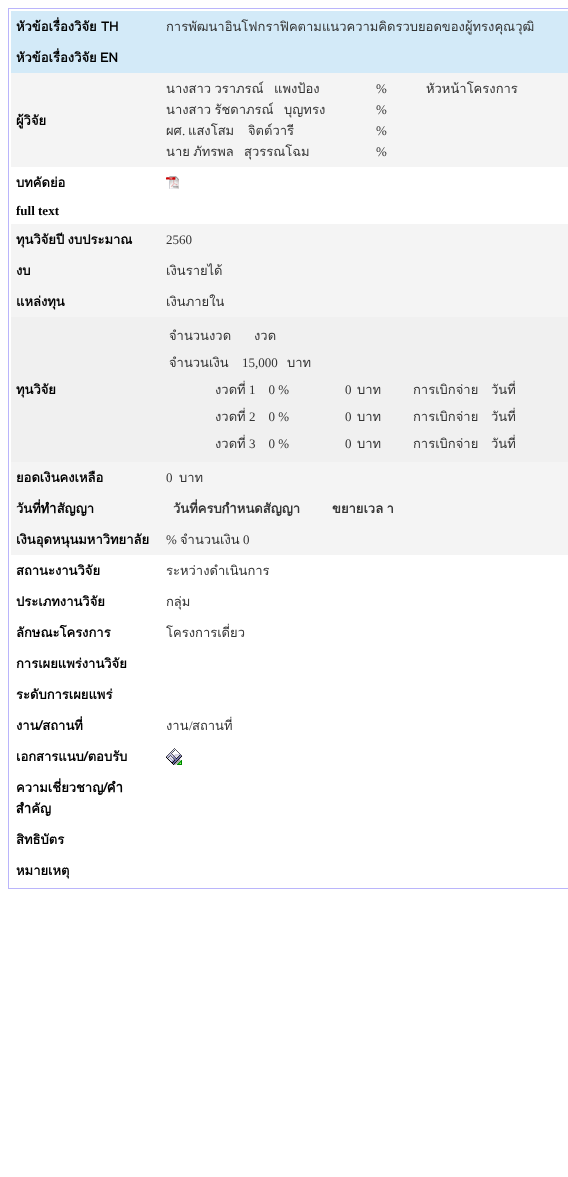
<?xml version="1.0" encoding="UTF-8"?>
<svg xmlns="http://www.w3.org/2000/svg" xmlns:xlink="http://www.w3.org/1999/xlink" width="568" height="1177">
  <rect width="100%" height="100%" fill="#ffffff" />
  <rect x="8" y="8" width="560" height="881" fill="#bab5fb" />
  <rect x="9" y="9" width="559" height="879" fill="#ffffff" />
  <rect x="11" y="11" width="557" height="31" fill="#d3eaf8" />
  <rect x="11" y="42" width="557" height="31" fill="#d3eaf8" />
  <rect x="11" y="73" width="557" height="94" fill="#f4f4f4" />
  <image x="166" y="176" width="13" height="13" xlink:href="image1.png" />
  <rect x="11" y="224" width="557" height="31" fill="#f4f4f4" />
  <rect x="11" y="255" width="557" height="31" fill="#f4f4f4" />
  <rect x="11" y="286" width="557" height="31" fill="#f4f4f4" />
  <rect x="11" y="317" width="557" height="145" fill="#f0f0f0" />
  <rect x="11" y="462" width="557" height="31" fill="#f4f4f4" />
  <rect x="11" y="493" width="557" height="31" fill="#f4f4f4" />
  <rect x="11" y="524" width="557" height="31" fill="#f4f4f4" />
  <image x="166" y="748" width="16" height="17" xlink:href="image2.png" />
  <text x="16" y="31" style="font-family: Loma; font-size: 13px; font-weight: bold; fill: #000000">หัวข้อเรื่องวิจัย TH</text>
  <text x="166" y="31" style="font-family: Loma; font-size: 13px; fill: #333333">การพัฒนาอินโฟกราฟิคตามแนวความคิดรวบยอดของผู้ทรงคุณวุฒิ</text>
  <text x="16" y="62" word-spacing="-1" style="font-family: Loma; font-size: 13px; font-weight: bold; fill: #000000">หัวข้อเรื่องวิจัย EN</text>
  <text x="16" y="125" style="font-family: Loma; font-size: 13px; font-weight: bold; fill: #000000">ผู้วิจัย</text>
  <text x="166" y="93" word-spacing="-1" style="font-family: Loma; font-size: 13px; fill: #333333">นางสาว วราภรณ์</text>
  <text x="274" y="93" style="font-family: Loma; font-size: 13px; fill: #333333">แพงป้อง</text>
  <text x="376" y="93" style="font-family: Liberation Serif; font-size: 13px; fill: #333333">%</text>
  <text x="426" y="93" style="font-family: Loma; font-size: 13px; fill: #333333">หัวหน้าโครงการ</text>
  <text x="166" y="114" word-spacing="-1" style="font-family: Loma; font-size: 13px; fill: #333333">นางสาว รัชดาภรณ์</text>
  <text x="284" y="114" style="font-family: Loma; font-size: 13px; fill: #333333">บุญทรง</text>
  <text x="376" y="114" style="font-family: Liberation Serif; font-size: 13px; fill: #333333">%</text>
  <text x="166" y="135" style="font-family: Loma; font-size: 13px; fill: #333333">ผศ</text>
  <text x="182" y="135" style="font-family: Liberation Serif; font-size: 13px; fill: #333333">.</text>
  <text x="188" y="135" style="font-family: Loma; font-size: 13px; fill: #333333">แสงโสม</text>
  <text x="248" y="135" style="font-family: Loma; font-size: 13px; fill: #333333">จิตต์วารี</text>
  <text x="376" y="135" style="font-family: Liberation Serif; font-size: 13px; fill: #333333">%</text>
  <text x="166" y="156" word-spacing="-1" style="font-family: Loma; font-size: 13px; fill: #333333">นาย ภัทรพล</text>
  <text x="244" y="156" style="font-family: Loma; font-size: 13px; fill: #333333">สุวรรณโฉม</text>
  <text x="376" y="156" style="font-family: Liberation Serif; font-size: 13px; fill: #333333">%</text>
  <text x="16" y="187" style="font-family: Loma; font-size: 13px; font-weight: bold; fill: #000000">บทคัดย่อ</text>
  <text x="16" y="215" style="font-family: Liberation Serif; font-size: 13px; font-weight: bold; fill: #000000">full text</text>
  <text x="16" y="244" word-spacing="-1" style="font-family: Loma; font-size: 13px; font-weight: bold; fill: #000000">ทุนวิจัยปี งบประมาณ</text>
  <text x="166" y="244" style="font-family: Liberation Serif; font-size: 13px; fill: #333333">2560</text>
  <text x="16" y="275" style="font-family: Loma; font-size: 13px; font-weight: bold; fill: #000000">งบ</text>
  <text x="166" y="275" style="font-family: Loma; font-size: 13px; fill: #333333">เงินรายได้</text>
  <text x="16" y="306" style="font-family: Loma; font-size: 13px; font-weight: bold; fill: #000000">แหล่งทุน</text>
  <text x="166" y="306" style="font-family: Loma; font-size: 13px; fill: #333333">เงินภายใน</text>
  <text x="16" y="394" style="font-family: Loma; font-size: 13px; font-weight: bold; fill: #000000">ทุนวิจัย</text>
  <text x="169" y="340" style="font-family: Loma; font-size: 13px; fill: #333333">จำนวนงวด</text>
  <text x="254" y="340" style="font-family: Loma; font-size: 13px; fill: #333333">งวด</text>
  <text x="169" y="367" style="font-family: Loma; font-size: 13px; fill: #333333">จำนวนเงิน</text>
  <text x="242" y="367" style="font-family: Liberation Serif; font-size: 13px; fill: #333333">15,000</text>
  <text x="287" y="367" style="font-family: Loma; font-size: 13px; fill: #333333">บาท</text>
  <text x="215" y="394" style="font-family: Loma; font-size: 13px; fill: #333333">งวดที่</text>
  <text x="249" y="394" style="font-family: Liberation Serif; font-size: 13px; fill: #333333" xml:space="preserve">1    0 %</text>
  <text x="345" y="394" style="font-family: Liberation Serif; font-size: 13px; fill: #333333">0</text>
  <text x="357" y="394" style="font-family: Loma; font-size: 13px; fill: #333333">บาท</text>
  <text x="413" y="394" style="font-family: Loma; font-size: 13px; fill: #333333">การเบิกจ่าย</text>
  <text x="491" y="394" style="font-family: Loma; font-size: 13px; fill: #333333">วันที่</text>
  <text x="215" y="421" style="font-family: Loma; font-size: 13px; fill: #333333">งวดที่</text>
  <text x="249" y="421" style="font-family: Liberation Serif; font-size: 13px; fill: #333333" xml:space="preserve">2    0 %</text>
  <text x="345" y="421" style="font-family: Liberation Serif; font-size: 13px; fill: #333333">0</text>
  <text x="357" y="421" style="font-family: Loma; font-size: 13px; fill: #333333">บาท</text>
  <text x="413" y="421" style="font-family: Loma; font-size: 13px; fill: #333333">การเบิกจ่าย</text>
  <text x="491" y="421" style="font-family: Loma; font-size: 13px; fill: #333333">วันที่</text>
  <text x="215" y="448" style="font-family: Loma; font-size: 13px; fill: #333333">งวดที่</text>
  <text x="249" y="448" style="font-family: Liberation Serif; font-size: 13px; fill: #333333" xml:space="preserve">3    0 %</text>
  <text x="345" y="448" style="font-family: Liberation Serif; font-size: 13px; fill: #333333">0</text>
  <text x="357" y="448" style="font-family: Loma; font-size: 13px; fill: #333333">บาท</text>
  <text x="413" y="448" style="font-family: Loma; font-size: 13px; fill: #333333">การเบิกจ่าย</text>
  <text x="491" y="448" style="font-family: Loma; font-size: 13px; fill: #333333">วันที่</text>
  <text x="16" y="482" style="font-family: Loma; font-size: 13px; font-weight: bold; fill: #000000">ยอดเงินคงเหลือ</text>
  <text x="166" y="482" style="font-family: Liberation Serif; font-size: 13px; fill: #333333">0</text>
  <text x="179" y="482" style="font-family: Loma; font-size: 13px; fill: #333333">บาท</text>
  <text x="16" y="513" style="font-family: Loma; font-size: 13px; font-weight: bold; fill: #000000">วันที่ทำสัญญา</text>
  <text x="173" y="513" style="font-family: Loma; font-size: 13px; font-weight: bold; fill: #333333">วันที่ครบกำหนดสัญญา</text>
  <text x="332" y="513" word-spacing="-1" style="font-family: Loma; font-size: 13px; font-weight: bold; fill: #333333">ขยายเวล า</text>
  <text x="16" y="544" style="font-family: Loma; font-size: 13px; font-weight: bold; fill: #000000">เงินอุดหนุนมหาวิทยาลัย</text>
  <text x="166" y="544" style="font-family: Liberation Serif; font-size: 13px; fill: #333333">%</text>
  <text x="180" y="544" style="font-family: Loma; font-size: 13px; fill: #333333">จำนวนเงิน</text>
  <text x="243" y="544" style="font-family: Liberation Serif; font-size: 13px; fill: #333333">0</text>
  <text x="16" y="575" style="font-family: Loma; font-size: 13px; font-weight: bold; fill: #000000">สถานะงานวิจัย</text>
  <text x="166" y="575" style="font-family: Loma; font-size: 13px; fill: #333333">ระหว่างดำเนินการ</text>
  <text x="16" y="606" style="font-family: Loma; font-size: 13px; font-weight: bold; fill: #000000">ประเภทงานวิจัย</text>
  <text x="166" y="606" style="font-family: Loma; font-size: 13px; fill: #333333">กลุ่ม</text>
  <text x="16" y="637" style="font-family: Loma; font-size: 13px; font-weight: bold; fill: #000000">ลักษณะโครงการ</text>
  <text x="166" y="637" style="font-family: Loma; font-size: 13px; fill: #333333">โครงการเดี่ยว</text>
  <text x="16" y="668" style="font-family: Loma; font-size: 13px; font-weight: bold; fill: #000000">การเผยแพร่งานวิจัย</text>
  <text x="16" y="699" style="font-family: Loma; font-size: 13px; font-weight: bold; fill: #000000">ระดับการเผยแพร่</text>
  <text x="16" y="730" style="font-family: Loma; font-size: 13px; font-weight: bold; fill: #000000">งาน/สถานที่</text>
  <text x="166" y="730" style="font-family: Loma; font-size: 13px; fill: #333333">งาน</text>
  <text x="189" y="730" style="font-family: Liberation Serif; font-size: 13px; fill: #333333">/</text>
  <text x="192" y="730" style="font-family: Loma; font-size: 13px; fill: #333333">สถานที่</text>
  <text x="16" y="761" style="font-family: Loma; font-size: 13px; font-weight: bold; fill: #000000">เอกสารแนบ/ตอบรับ</text>
  <text x="16" y="792" style="font-family: Loma; font-size: 13px; font-weight: bold; fill: #000000">ความเชี่ยวชาญ/คำ</text>
  <text x="16" y="813" style="font-family: Loma; font-size: 13px; font-weight: bold; fill: #000000">สำคัญ</text>
  <text x="16" y="844" style="font-family: Loma; font-size: 13px; font-weight: bold; fill: #000000">สิทธิบัตร</text>
  <text x="16" y="875" style="font-family: Loma; font-size: 13px; font-weight: bold; fill: #000000">หมายเหตุ</text>
</svg>
